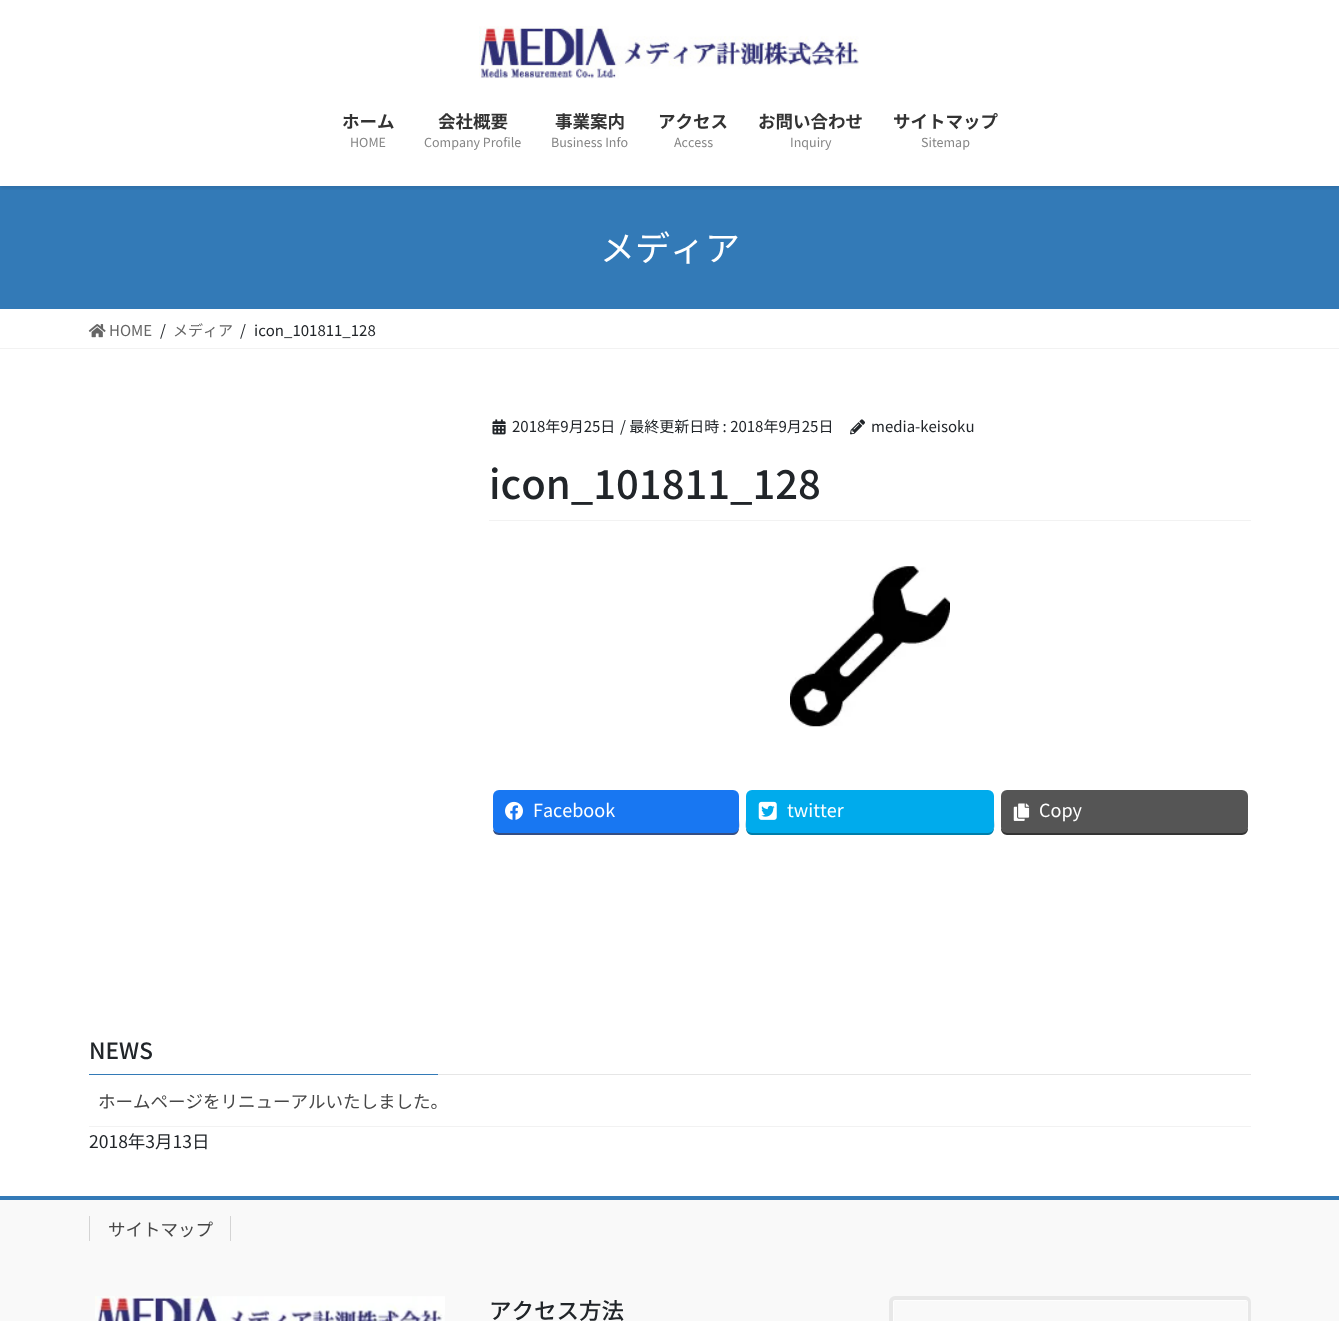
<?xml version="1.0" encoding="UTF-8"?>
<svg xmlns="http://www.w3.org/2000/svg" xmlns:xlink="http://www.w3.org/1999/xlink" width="1339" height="1321">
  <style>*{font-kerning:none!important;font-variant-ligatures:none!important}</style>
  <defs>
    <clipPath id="clip1"><rect x="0" y="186" width="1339" height="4" /></clipPath>
  </defs>
  <rect width="100%" height="100%" fill="#ffffff" />
  <rect y="186" width="1339" height="123" fill="#337ab7" />
  <g clip-path="url(#clip1)">
    <rect y="1" width="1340" height="187" fill="#000000" fill-opacity="0.1" filter="blur(2px)" />
  </g>
  <image x="479" y="26" width="380" height="53" xlink:href="image1.png" />
  <rect y="348" width="1339" height="1" fill="#f2f2f2" />
  <image x="88" y="324" width="18" height="14" xlink:href="image2.png" />
  <rect x="489" y="520" width="762" height="1" fill="#f2f2f2" />
  <image x="492" y="419" width="14" height="16" xlink:href="image3.png" />
  <image x="850" y="419" width="15" height="16" xlink:href="image4.png" />
  <image x="790" y="566" width="160" height="161" xlink:href="image5.png" />
  <path d="M 493 829 c 0 3 2 6 6 6 h 234 c 8 0 6 -11 6 -16 v -22 v 29 c 0 4 -3 6 -7 6 h -233 c -3 0 -5 -1 -6 -3 z" fill="#344e84" />
  <rect x="493" y="790" width="246" height="43" rx="6" fill="#1877f2" />
  <image x="505" y="801" width="18" height="19" xlink:href="image6.png" />
  <path d="M 746 797 v 22 c 0 5 -2 16 6 16 h 236 c 8 0 6 -11 6 -16 v -22 v 29 c 0 4 -3 6 -6 6 h -236 c -3 0 -6 -2 -6 -6 z" fill="#007eaa" />
  <rect x="746" y="790" width="248" height="43" rx="6" fill="#00abec" />
  <image x="758" y="801" width="19" height="19" xlink:href="image7.png" />
  <path d="M 1001 797 v 32 c 0 3 3 6 6 6 h 235 c 3 0 6 -3 6 -6 v -30 v -2 v 29 c 0 4 -3 6 -7 6 h -233 c -4 0 -7 -2 -7 -6 z" fill="#333333" />
  <rect x="1001" y="790" width="247" height="43" rx="6" fill="#555555" />
  <image x="1013" y="803" width="17" height="18" xlink:href="image8.png" />
  <rect x="438" y="1074" width="813" height="1" fill="#e6e6e6" />
  <rect x="89" y="1074" width="349" height="1" fill="#337ab7" />
  <rect x="89" y="1126" width="1162" height="1" fill="#f2f2f2" />
  <rect y="1200" width="1339" height="121" fill="#f9f9f9" />
  <rect y="1196" width="1339" height="4" fill="#337ab7" />
  <rect x="230" y="1216" width="1" height="25" fill="#d4d4d4" />
  <rect x="89" y="1216" width="1" height="25" fill="#d4d4d4" />
  <image x="95" y="1296" width="350" height="25" xlink:href="image9.png" />
  <rect x="891" y="1298" width="358" height="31" rx="4" fill="none" stroke="#e8e8e8" stroke-width="4" />
  <path d="M 896 1300 c -2 0 -3 1 -3 2 v 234 c 0 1 1 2 3 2 h 350 c 1 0 2 -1 2 -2 v -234 c 0 -1 -1 -2 -2 -2 z m -2 1 v 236 h 353 v -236 z" fill="#ffffff" fill-opacity="0.8" fill-rule="evenodd" />
  <text x="342" y="128" style="font-family: Noto Sans JP; font-size: 17.5px; font-weight: bold; fill: #333333">ホーム</text>
  <text x="350" y="147" style="font-family: Noto Sans JP; font-size: 12.5px; fill: #858585">HOME</text>
  <text x="438" y="128" style="font-family: Noto Sans JP; font-size: 17.5px; font-weight: bold; fill: #333333">会社概要</text>
  <text x="424" y="147" style="font-family: Noto Sans JP; font-size: 12.5px; fill: #858585">Company Profile</text>
  <text x="555" y="128" style="font-family: Noto Sans JP; font-size: 17.5px; font-weight: bold; fill: #333333">事業案内</text>
  <text x="551" y="147" style="font-family: Noto Sans JP; font-size: 12.5px; fill: #858585">Business Info</text>
  <text x="658" y="128" style="font-family: Noto Sans JP; font-size: 17.5px; font-weight: bold; fill: #333333">アクセス</text>
  <text x="674" y="147" style="font-family: Noto Sans JP; font-size: 12.5px; fill: #858585">Access</text>
  <text x="758" y="128" style="font-family: Noto Sans JP; font-size: 17.5px; font-weight: bold; fill: #333333">お問い合わせ</text>
  <text x="790" y="147" style="font-family: Noto Sans JP; font-size: 12.5px; fill: #858585">Inquiry</text>
  <text x="893" y="128" style="font-family: Noto Sans JP; font-size: 17.5px; font-weight: bold; fill: #333333">サイトマップ</text>
  <text x="921" y="147" style="font-family: Noto Sans JP; font-size: 12.5px; fill: #858585">Sitemap</text>
  <text x="600" y="261" style="font-family: Noto Sans JP; font-size: 35px; fill: #ffffff">メディア</text>
  <text x="109" y="336" style="font-family: Noto Sans JP; font-size: 15px; fill: #666666">HOME</text>
  <text x="160" y="336" style="font-family: Noto Sans JP; font-size: 15px; fill: #212529">/</text>
  <text x="173" y="336" style="font-family: Noto Sans JP; font-size: 15px; fill: #666666">メディア</text>
  <text x="240" y="336" style="font-family: Noto Sans JP; font-size: 15px; fill: #212529">/</text>
  <text x="254" y="336" style="font-family: Noto Sans JP; font-size: 15px; fill: #212529">icon_101811_128</text>
  <text x="512" y="432" style="font-family: Noto Sans JP; font-size: 15px; fill: #212529">2018年9月25日</text>
  <text x="620" y="432" style="font-family: Noto Sans JP; font-size: 15px; fill: #212529">/ 最終更新日時 : 2018年9月25日</text>
  <text x="871" y="432" style="font-family: Noto Sans JP; font-size: 15px; fill: #212529">media-keisoku</text>
  <text x="489" y="499" style="font-family: Noto Sans JP; font-size: 40px; font-weight: 500; fill: #212529">icon_101811_128</text>
  <text x="533" y="817" style="font-family: Noto Sans JP; font-size: 18px; fill: #ffffff">Facebook</text>
  <text x="787" y="817" style="font-family: Noto Sans JP; font-size: 18px; fill: #ffffff">twitter</text>
  <text x="1039" y="817" style="font-family: Noto Sans JP; font-size: 18px; fill: #ffffff">Copy</text>
  <text x="89" y="1059" style="font-family: Noto Sans JP; font-size: 22.5px; font-weight: 500; fill: #212529">NEWS</text>
  <text x="98" y="1108" style="font-family: Noto Sans JP; font-size: 17.5px; fill: #464646">ホームページをリニューアルいたしました。</text>
  <text x="89" y="1148" style="font-family: Noto Sans JP; font-size: 17.5px; fill: #212529">2018年3月13日</text>
  <text x="108" y="1236" style="font-family: Noto Sans JP; font-size: 17.5px; fill: #464646">サイトマップ</text>
  <text x="489" y="1319" style="font-family: Noto Sans JP; font-size: 22.5px; font-weight: 500; fill: #212529">アクセス方法</text>
</svg>
